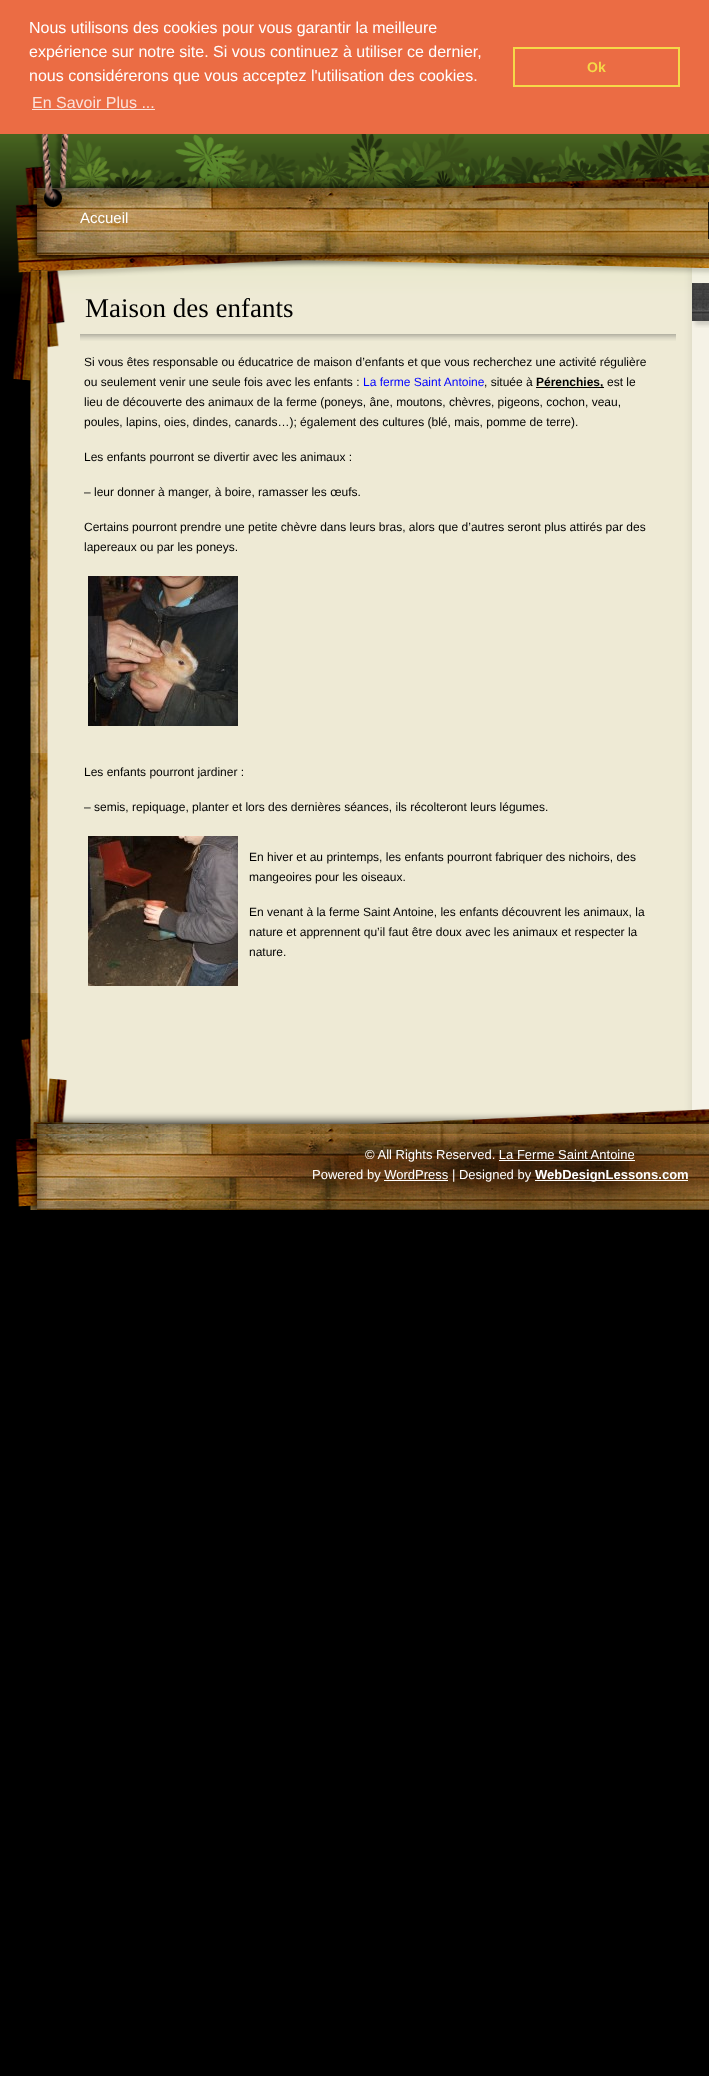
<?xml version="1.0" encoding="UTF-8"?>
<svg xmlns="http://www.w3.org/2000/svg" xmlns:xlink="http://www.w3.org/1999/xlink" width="709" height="2076">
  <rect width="100%" height="100%" fill="#000000" />
  <image x="0" y="134" width="17" height="139" xlink:href="image1.png" />
  <rect width="709" height="134" fill="#eb6c44" />
  <rect x="32" y="109" width="123" height="1" fill="#fbe2da" />
  <rect x="514" y="48" width="165" height="38" fill="none" stroke="#f5d948" stroke-width="2" />
  <image x="17" y="134" width="692" height="54" xlink:href="image2.png" />
  <image x="15" y="188" width="694" height="85" xlink:href="image3.png" />
  <image x="708" y="202" width="1" height="37" xlink:href="image4.png" />
  <image x="0" y="540" width="709" height="472" xlink:href="image5.png" />
  <image x="0" y="273" width="709" height="267" xlink:href="image6.png" />
  <image x="80" y="334" width="596" height="7" xlink:href="image7.png" />
  <rect x="536" y="387" width="68" height="1" fill="#000000" />
  <image x="88" y="576" width="150" height="150" xlink:href="image8.png" />
  <image x="88" y="836" width="150" height="150" xlink:href="image9.png" />
  <image x="692" y="283" width="17" height="45" xlink:href="image10.png" />
  <image x="15" y="1012" width="694" height="198" xlink:href="image11.png" />
  <rect x="499" y="1160" width="136" height="1" fill="#ffffff" />
  <rect x="535" y="1180" width="153" height="1" fill="#ffffff" />
  <rect x="384" y="1180" width="64" height="1" fill="#ffffff" />
  <text x="29" y="33" style="font-family: Liberation Sans; font-size: 16px; fill: #ffffff">Nous utilisons des cookies pour vous garantir la meilleure</text>
  <text x="29" y="57" style="font-family: Liberation Sans; font-size: 16px; fill: #ffffff">expérience sur notre site. Si vous continuez à utiliser ce dernier,</text>
  <text x="29" y="81" style="font-family: Liberation Sans; font-size: 16px; fill: #ffffff">nous considérerons que vous acceptez l'utilisation des cookies.</text>
  <text x="32" y="108" style="font-family: Liberation Sans; font-size: 16px; fill: #fbe2da">En Savoir Plus ...</text>
  <text x="587" y="72" style="font-family: Liberation Sans; font-size: 14px; font-weight: bold; fill: #f5d948">Ok</text>
  <text x="80" y="223" style="font-family: Liberation Sans; font-size: 15px; fill: #ffffff">Accueil</text>
  <text x="85" y="317" style="font-family: Liberation Serif; font-size: 27px; fill: #000000">Maison des enfants</text>
  <text x="84" y="366" style="font-family: Liberation Sans; font-size: 12px; fill: #000000">Si vous êtes responsable ou éducatrice de maison d’enfants et que vous recherchez une activité régulière</text>
  <text x="84" y="386" style="font-family: Liberation Sans; font-size: 12px; fill: #000000">ou seulement venir une seule fois avec les enfants :</text>
  <text x="363" y="386" style="font-family: Liberation Sans; font-size: 12px; fill: #0000ff">La ferme Saint Antoine</text>
  <text x="484" y="386" style="font-family: Liberation Sans; font-size: 12px; fill: #000000">, située à</text>
  <text x="536" y="386" style="font-family: Liberation Sans; font-size: 12px; font-weight: bold; fill: #000000">Pérenchies,</text>
  <text x="607" y="386" style="font-family: Liberation Sans; font-size: 12px; fill: #000000">est le</text>
  <text x="84" y="406" style="font-family: Liberation Sans; font-size: 12px; fill: #000000">lieu de découverte des animaux de la ferme (poneys, âne, moutons, chèvres, pigeons, cochon, veau,</text>
  <text x="84" y="426" style="font-family: Liberation Sans; font-size: 12px; fill: #000000">poules, lapins, oies, dindes, canards…); également des cultures (blé, mais, pomme de terre).</text>
  <text x="84" y="461" style="font-family: Liberation Sans; font-size: 12px; fill: #000000">Les enfants pourront se divertir avec les animaux :</text>
  <text x="84" y="496" style="font-family: Liberation Sans; font-size: 12px; fill: #000000">– leur donner à manger, à boire, ramasser les œufs.</text>
  <text x="84" y="531" style="font-family: Liberation Sans; font-size: 12px; fill: #000000">Certains pourront prendre une petite chèvre dans leurs bras, alors que d’autres seront plus attirés par des</text>
  <text x="84" y="551" style="font-family: Liberation Sans; font-size: 12px; fill: #000000">lapereaux ou par les poneys.</text>
  <text x="84" y="776" style="font-family: Liberation Sans; font-size: 12px; fill: #000000">Les enfants pourront jardiner :</text>
  <text x="84" y="811" style="font-family: Liberation Sans; font-size: 12px; fill: #000000">– semis, repiquage, planter et lors des dernières séances, ils récolteront leurs légumes.</text>
  <text x="249" y="861" style="font-family: Liberation Sans; font-size: 12px; fill: #000000">En hiver et au printemps, les enfants pourront fabriquer des nichoirs, des</text>
  <text x="249" y="881" style="font-family: Liberation Sans; font-size: 12px; fill: #000000">mangeoires pour les oiseaux.</text>
  <text x="249" y="916" style="font-family: Liberation Sans; font-size: 12px; fill: #000000">En venant à la ferme Saint Antoine, les enfants découvrent les animaux, la</text>
  <text x="249" y="936" style="font-family: Liberation Sans; font-size: 12px; fill: #000000">nature et apprennent qu’il faut être doux avec les animaux et respecter la</text>
  <text x="249" y="956" style="font-family: Liberation Sans; font-size: 12px; fill: #000000">nature.</text>
  <text x="365" y="1159" style="font-family: Liberation Sans; font-size: 13px; fill: #ffffff">© All Rights Reserved. La Ferme Saint Antoine</text>
  <text x="312" y="1179" style="font-family: Liberation Sans; font-size: 13px; fill: #ffffff">Powered by WordPress | Designed by</text>
  <text x="535" y="1179" style="font-family: Liberation Sans; font-size: 13px; font-weight: bold; fill: #ffffff">WebDesignLessons.com</text>
</svg>
